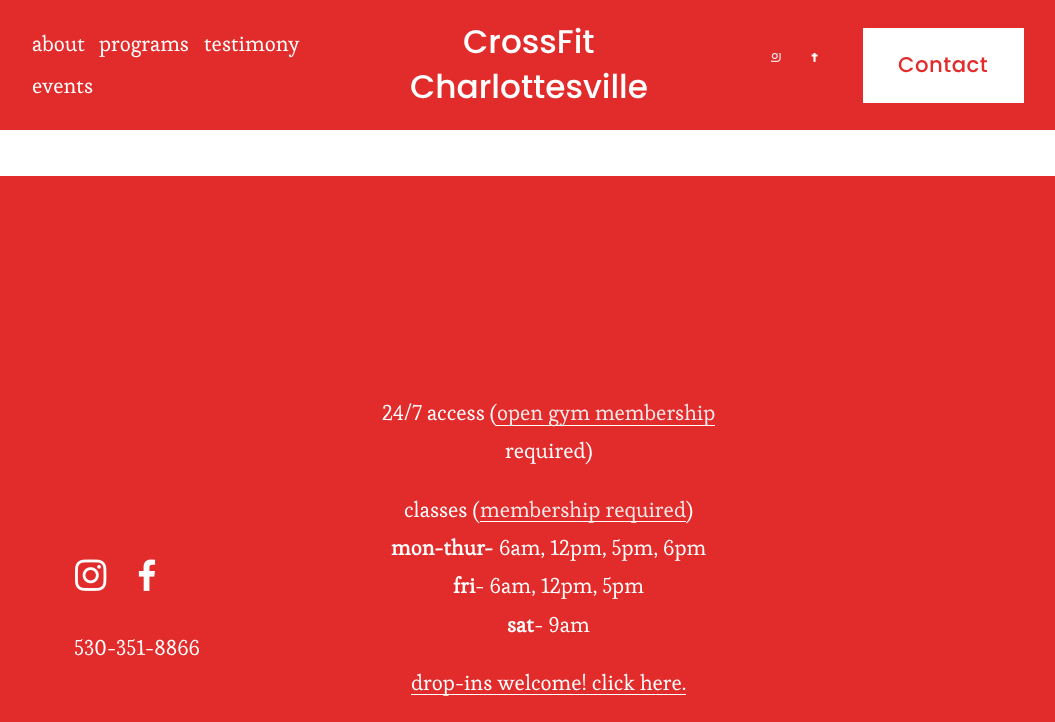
<?xml version="1.0" encoding="UTF-8"?>
<svg xmlns="http://www.w3.org/2000/svg" xmlns:xlink="http://www.w3.org/1999/xlink" width="1055" height="722">
  <rect width="100%" height="100%" fill="#ffffff" />
  <rect width="1055" height="130" fill="#e22c2c" />
  <image x="771" y="53" width="10" height="9" xlink:href="image1.png" />
  <image x="811" y="53" width="7" height="9" xlink:href="image2.png" />
  <rect x="863" y="28" width="161" height="75" fill="#ffffff" />
  <rect y="176" width="1055" height="546" fill="#e22c2c" />
  <image x="75" y="559" width="32" height="32" xlink:href="image3.png" />
  <image x="138" y="559" width="18" height="32" xlink:href="image4.png" />
  <rect x="496" y="425" width="219" height="1" fill="#ffffff" />
  <rect x="480" y="521" width="206" height="1" fill="#ffffff" />
  <rect x="411" y="694" width="275" height="1" fill="#ffffff" />
  <text x="32" y="51" style="font-family: Esteban; font-size: 21.25px; fill: #ffffff">about</text>
  <text x="99" y="51" style="font-family: Esteban; font-size: 21.25px; fill: #ffffff">programs</text>
  <text x="204" y="51" style="font-family: Esteban; font-size: 21.25px; fill: #ffffff">testimony</text>
  <text x="32" y="93" style="font-family: Esteban; font-size: 21.25px; fill: #ffffff">events</text>
  <text x="463" y="53" style="font-family: Poppins; font-size: 32.75px; font-weight: 500; fill: #ffffff">CrossFit</text>
  <text x="410" y="98" style="font-family: Poppins; font-size: 32.75px; font-weight: 500; fill: #ffffff">Charlottesville</text>
  <text x="898" y="72" style="font-family: Poppins; font-size: 21.25px; font-weight: 500; letter-spacing: 0.5px; fill: #e22c2c">Contact</text>
  <text x="382" y="420" style="font-family: Esteban; font-size: 21.25px; fill: #ffffff">24/7 access (</text>
  <text x="497" y="420" style="font-family: Esteban; font-size: 21.25px; fill: #f6eaea">open gym membership</text>
  <text x="505" y="458" style="font-family: Esteban; font-size: 21.25px; fill: #ffffff">required)</text>
  <text x="404" y="517" style="font-family: Esteban; font-size: 21.25px; fill: #ffffff">classes (</text>
  <text x="480" y="517" style="font-family: Esteban; font-size: 21.25px; fill: #f6eaea">membership required</text>
  <text x="686" y="517" style="font-family: Esteban; font-size: 21.25px; fill: #ffffff">)</text>
  <text x="391" y="555" style="font-family: Esteban; font-size: 21.25px; font-weight: bold; fill: #ffffff">mon-thur-</text>
  <text x="499" y="555" style="font-family: Esteban; font-size: 21.25px; fill: #ffffff">6am, 12pm, 5pm, 6pm</text>
  <text x="453" y="593" style="font-family: Esteban; font-size: 21.25px; font-weight: bold; fill: #ffffff">fri</text>
  <text x="475" y="593" style="font-family: Esteban; font-size: 21.25px; fill: #ffffff">- 6am, 12pm, 5pm</text>
  <text x="507" y="632" style="font-family: Esteban; font-size: 21.25px; font-weight: bold; fill: #ffffff">sat</text>
  <text x="534" y="632" style="font-family: Esteban; font-size: 21.25px; fill: #ffffff">- 9am</text>
  <text x="411" y="690" style="font-family: Esteban; font-size: 21.25px; fill: #ffffff">drop-ins welcome! click here.</text>
  <text x="74" y="655" style="font-family: Esteban; font-size: 21.25px; fill: #ffffff">530-351-8866</text>
</svg>
